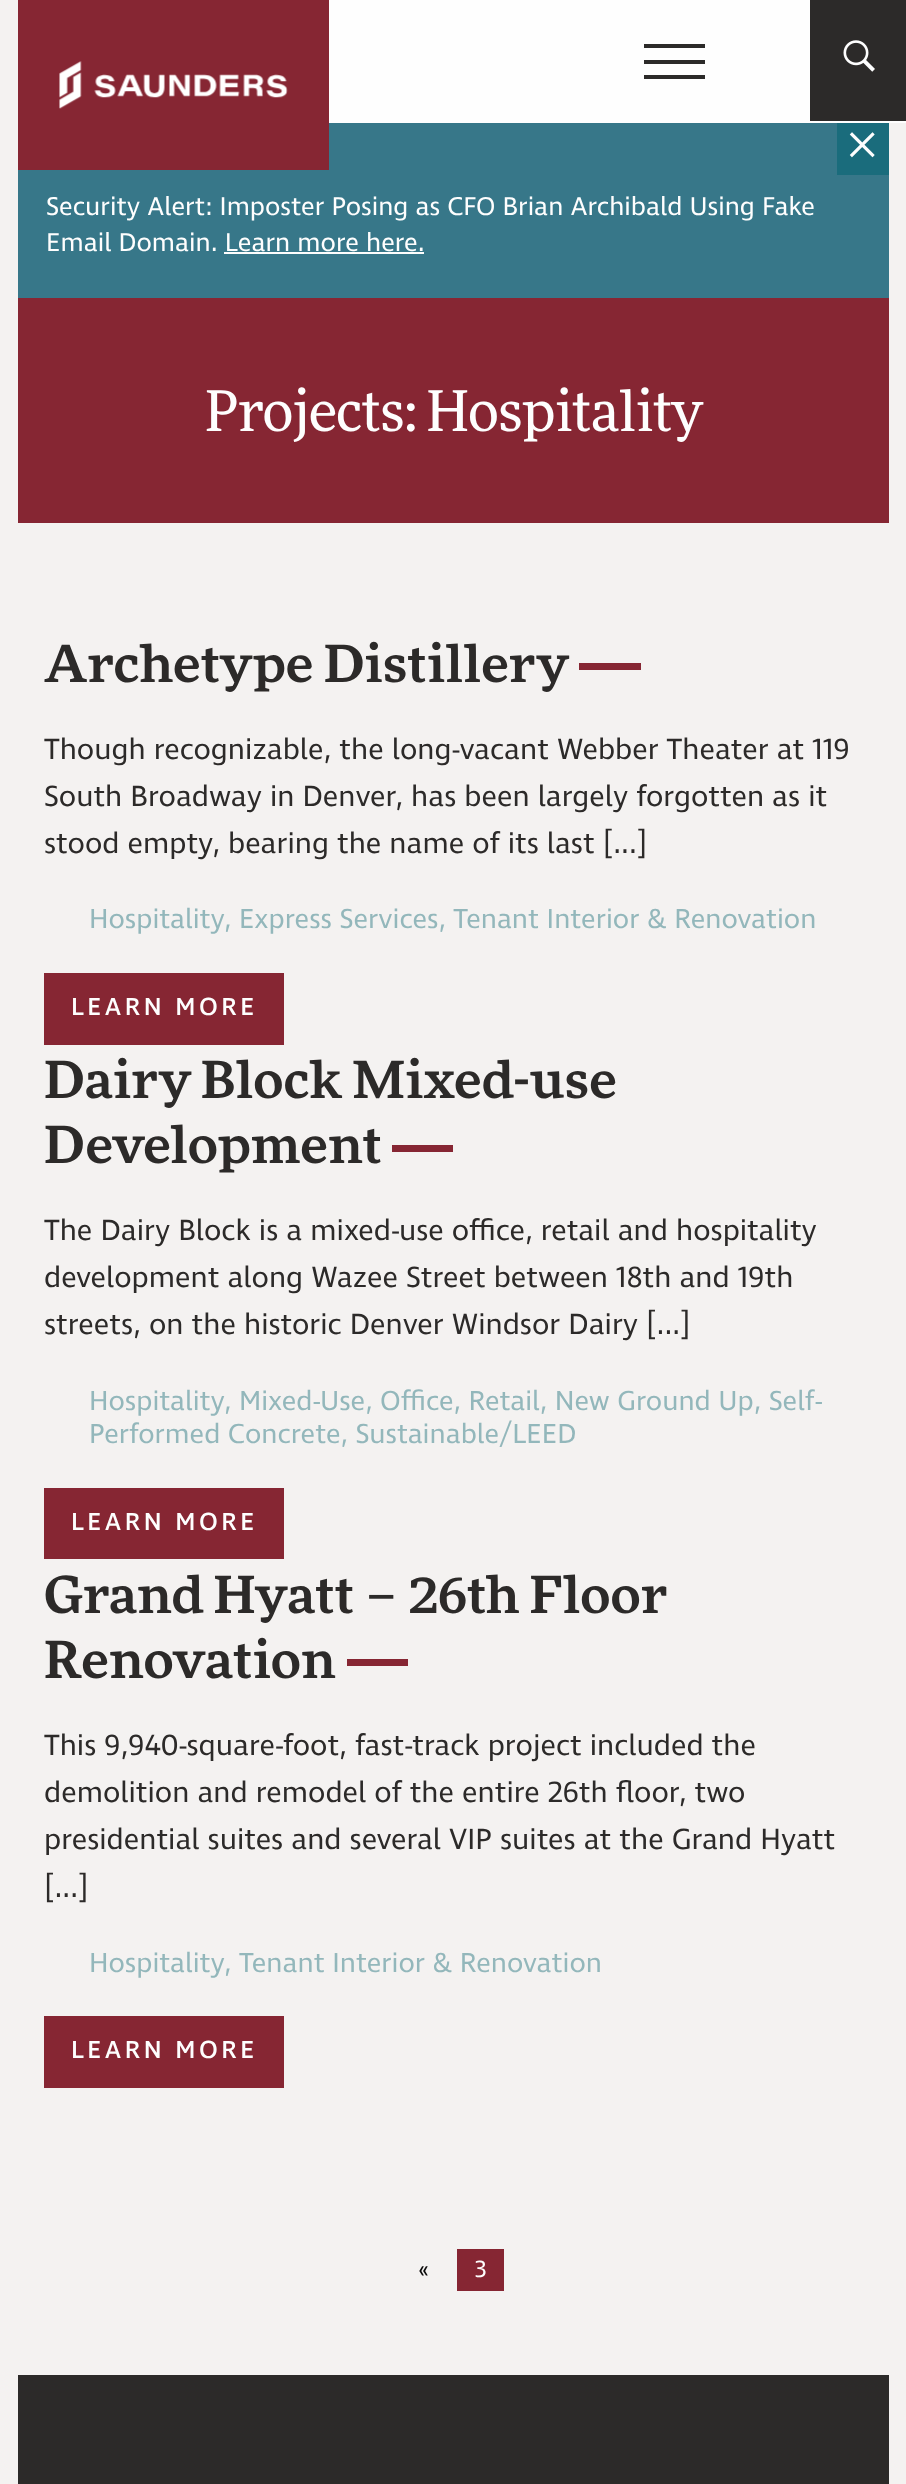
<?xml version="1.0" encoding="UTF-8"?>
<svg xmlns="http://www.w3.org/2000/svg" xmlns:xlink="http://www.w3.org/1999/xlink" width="906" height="2484">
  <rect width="100%" height="100%" fill="#f4f2f1" />
  <rect x="18" y="123" width="871" height="175" fill="#377789" />
  <rect x="18" width="311" height="170" fill="#862633" />
  <image x="59" y="61" width="229" height="48" xlink:href="image1.png" />
  <rect x="329" width="577" height="123" fill="#fefefe" />
  <rect x="644" y="44" width="61" height="4" fill="#2c2a29" />
  <rect x="644" y="60" width="61" height="4" fill="#2c2a29" />
  <rect x="644" y="75" width="61" height="4" fill="#2c2a29" />
  <rect x="810" width="96" height="121" fill="#2c2a29" />
  <image x="843" y="40" width="32" height="32" xlink:href="image2.png" />
  <rect x="837" y="123" width="52" height="52" fill="#1a6c7c" />
  <rect x="224" y="252" width="200" height="2" fill="#fefefe" />
  <rect x="18" y="298" width="871" height="225" fill="#862633" />
  <rect x="579" y="663" width="62" height="7" fill="#862633" />
  <rect x="44" y="973" width="240" height="72" fill="#862633" />
  <rect x="392" y="1145" width="61" height="7" fill="#862633" />
  <rect x="44" y="1488" width="240" height="71" fill="#862633" />
  <rect x="347" y="1659" width="61" height="7" fill="#862633" />
  <rect x="44" y="2016" width="240" height="72" fill="#862633" />
  <rect x="457" y="2249" width="47" height="42" fill="#862633" />
  <rect x="18" y="2375" width="871" height="109" fill="#2c2a29" />
  <text x="845" y="165" style="font-family: Liberation Serif; font-size: 61px; fill: #fefefe">×</text>
  <text x="46" y="215" style="font-family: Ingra; font-size: 26.25px; fill: #fefefe">Security Alert: Imposter Posing as CFO Brian Archibald Using Fake</text>
  <text x="46" y="251" style="font-family: Ingra; font-size: 26.25px; fill: #fefefe">Email Domain. Learn more here.</text>
  <text x="205" y="431" style="font-family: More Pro; font-size: 56px; letter-spacing: -0.9px; fill: #fefefe">Projects: Hospitality</text>
  <text x="44" y="682" style="font-family: More Pro; font-size: 50.75px; font-weight: 500; fill: #2c2a29">Archetype Distillery</text>
  <text x="44" y="759" style="font-family: Ingra; font-size: 29.75px; fill: #2c2a29">Though recognizable, the long-vacant Webber Theater at 119</text>
  <text x="44" y="806" style="font-family: Ingra; font-size: 29.75px; fill: #2c2a29">South Broadway in Denver, has been largely forgotten as it</text>
  <text x="44" y="853" style="font-family: Ingra; font-size: 29.75px; fill: #2c2a29">stood empty, bearing the name of its last [...]</text>
  <text x="89" y="928" style="font-family: Ingra; font-size: 28px; fill: #93b7bb">Hospitality</text>
  <text x="224" y="928" style="font-family: Ingra; font-size: 28px; fill: #93b7bb">, Express Services, Tenant Interior &amp; Renovation</text>
  <text x="71" y="1015" style="font-family: Ingra; font-size: 25.25px; font-weight: 500; letter-spacing: 3.5px; fill: #fefefe">LEARN MORE</text>
  <text x="44" y="1098" style="font-family: More Pro; font-size: 50.75px; font-weight: 500; fill: #2c2a29">Dairy Block Mixed-use</text>
  <text x="44" y="1163" style="font-family: More Pro; font-size: 50.75px; font-weight: 500; fill: #2c2a29">Development</text>
  <text x="44" y="1240" style="font-family: Ingra; font-size: 29.75px; fill: #2c2a29">The Dairy Block is a mixed-use office, retail and hospitality</text>
  <text x="44" y="1287" style="font-family: Ingra; font-size: 29.75px; fill: #2c2a29">development along Wazee Street between 18th and 19th</text>
  <text x="44" y="1334" style="font-family: Ingra; font-size: 29.75px; fill: #2c2a29">streets, on the historic Denver Windsor Dairy [...]</text>
  <text x="89" y="1410" style="font-family: Ingra; font-size: 28px; fill: #93b7bb">Hospitality</text>
  <text x="224" y="1410" style="font-family: Ingra; font-size: 28px; fill: #93b7bb">, Mixed-Use, Office, Retail, New Ground Up, Self-</text>
  <text x="89" y="1443" style="font-family: Ingra; font-size: 28px; fill: #93b7bb">Performed Concrete, Sustainable/LEED</text>
  <text x="71" y="1530" style="font-family: Ingra; font-size: 25.25px; font-weight: 500; letter-spacing: 3.5px; fill: #fefefe">LEARN MORE</text>
  <text x="44" y="1613" style="font-family: More Pro; font-size: 50.75px; font-weight: 500; fill: #2c2a29">Grand Hyatt – 26th Floor</text>
  <text x="44" y="1678" style="font-family: More Pro; font-size: 50.75px; font-weight: 500; fill: #2c2a29">Renovation</text>
  <text x="44" y="1755" style="font-family: Ingra; font-size: 29.75px; fill: #2c2a29">This 9,940-square-foot, fast-track project included the</text>
  <text x="44" y="1802" style="font-family: Ingra; font-size: 29.75px; fill: #2c2a29">demolition and remodel of the entire 26th floor, two</text>
  <text x="44" y="1849" style="font-family: Ingra; font-size: 29.75px; fill: #2c2a29">presidential suites and several VIP suites at the Grand Hyatt</text>
  <text x="44" y="1897" style="font-family: Ingra; font-size: 29.75px; fill: #2c2a29">[...]</text>
  <text x="89" y="1972" style="font-family: Ingra; font-size: 28px; fill: #93b7bb">Hospitality</text>
  <text x="224" y="1972" style="font-family: Ingra; font-size: 28px; fill: #93b7bb">, Tenant Interior &amp; Renovation</text>
  <text x="71" y="2058" style="font-family: Ingra; font-size: 25.25px; font-weight: 500; letter-spacing: 3.5px; fill: #fefefe">LEARN MORE</text>
  <text x="418" y="2277" style="font-family: Ingra; font-size: 24px; fill: #0a0a0a">«</text>
  <text x="475" y="2277" style="font-family: Ingra; font-size: 24px; fill: #fefefe">3</text>
</svg>
